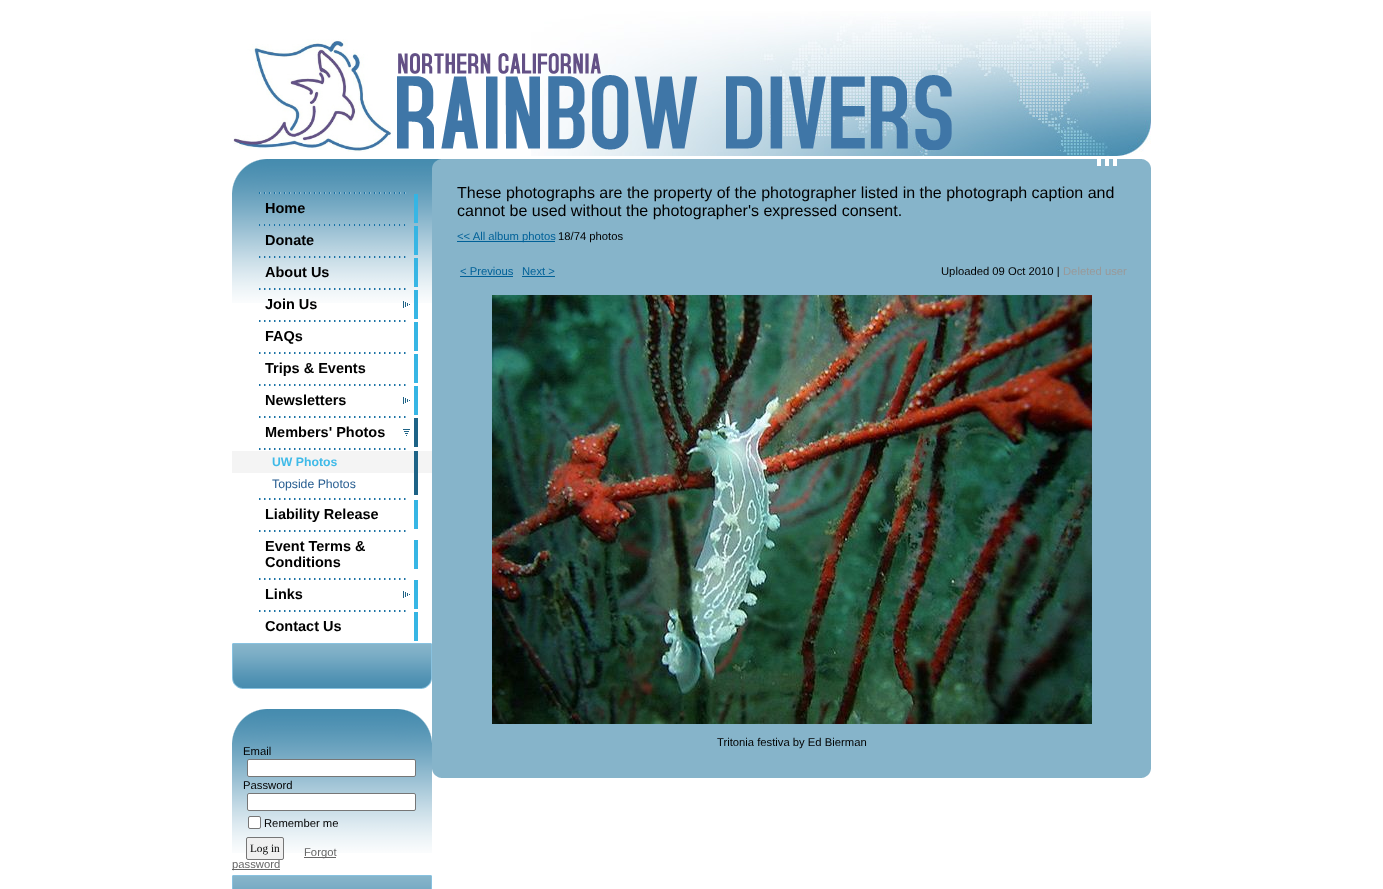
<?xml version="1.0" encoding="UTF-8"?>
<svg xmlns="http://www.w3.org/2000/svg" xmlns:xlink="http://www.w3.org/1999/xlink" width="1383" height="889">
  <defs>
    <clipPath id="clip1"><rect x="658" y="265" width="468" height="12" /></clipPath>
  </defs>
  <rect width="100%" height="100%" fill="#ffffff" />
  <image x="531" y="11" width="620" height="145" xlink:href="image1.png" />
  <image x="233" y="39" width="158" height="113" xlink:href="image2.png" />
  <image x="398" y="53" width="203" height="21" xlink:href="image3.png" />
  <image x="397" y="75" width="555" height="75" xlink:href="image4.png" />
  <image x="232" y="159" width="200" height="144" xlink:href="image5.png" />
  <image x="242" y="643" width="180" height="46" xlink:href="image6.png" />
  <image x="232" y="159" width="37" height="34" xlink:href="image7.png" />
  <image x="422" y="643" width="10" height="46" xlink:href="image8.png" />
  <image x="232" y="643" width="10" height="46" xlink:href="image9.png" />
  <image x="414" y="194" width="4" height="29" xlink:href="image10.png" />
  <image x="259" y="192" width="147" height="2" xlink:href="image11.png" />
  <image x="414" y="226" width="4" height="29" xlink:href="image10.png" />
  <image x="259" y="224" width="147" height="2" xlink:href="image12.png" />
  <image x="414" y="258" width="4" height="29" xlink:href="image10.png" />
  <image x="259" y="256" width="147" height="2" xlink:href="image13.png" />
  <image x="414" y="290" width="4" height="29" xlink:href="image10.png" />
  <image x="259" y="288" width="147" height="2" xlink:href="image14.png" />
  <image x="403" y="301" width="7" height="7" xlink:href="image15.png" />
  <image x="414" y="322" width="4" height="29" xlink:href="image10.png" />
  <image x="259" y="320" width="147" height="2" xlink:href="image16.png" />
  <image x="414" y="354" width="4" height="29" xlink:href="image10.png" />
  <image x="259" y="352" width="147" height="2" xlink:href="image16.png" />
  <image x="414" y="386" width="4" height="29" xlink:href="image10.png" />
  <image x="259" y="384" width="147" height="2" xlink:href="image16.png" />
  <image x="403" y="397" width="7" height="7" xlink:href="image17.png" />
  <rect x="414" y="418" width="4" height="29" fill="#1e6386" />
  <image x="259" y="416" width="147" height="2" xlink:href="image16.png" />
  <image x="403" y="429" width="7" height="7" xlink:href="image18.png" />
  <image x="259" y="448" width="147" height="2" xlink:href="image16.png" />
  <rect x="232" y="451" width="200" height="22" fill="#f4f4f4" />
  <rect x="414" y="451" width="4" height="44" fill="#1e6386" />
  <image x="414" y="500" width="4" height="29" xlink:href="image10.png" />
  <image x="259" y="498" width="147" height="2" xlink:href="image16.png" />
  <image x="414" y="540" width="4" height="29" xlink:href="image10.png" />
  <image x="259" y="530" width="147" height="2" xlink:href="image16.png" />
  <image x="414" y="580" width="4" height="29" xlink:href="image10.png" />
  <image x="259" y="578" width="147" height="2" xlink:href="image16.png" />
  <image x="403" y="591" width="7" height="7" xlink:href="image17.png" />
  <image x="414" y="612" width="4" height="29" xlink:href="image10.png" />
  <image x="259" y="610" width="147" height="2" xlink:href="image16.png" />
  <image x="232" y="709" width="200" height="144" xlink:href="image5.png" />
  <image x="233" y="875" width="198" height="14" xlink:href="image19.png" />
  <image x="232" y="709" width="37" height="34" xlink:href="image7.png" />
  <image x="395" y="709" width="37" height="34" xlink:href="image20.png" />
  <image x="431" y="875" width="1" height="14" xlink:href="image21.png" />
  <image x="232" y="875" width="1" height="14" xlink:href="image21.png" />
  <rect x="247.5" y="759.5" width="168" height="17" rx="1.5" fill="#ffffff" stroke="#767676" />
  <rect x="247.5" y="793.5" width="168" height="17" rx="1.5" fill="#ffffff" stroke="#767676" />
  <rect x="248.5" y="816.5" width="12" height="12" rx="1.5" fill="#ffffff" stroke="#767676" />
  <rect x="304" y="857" width="32" height="1" fill="#666666" />
  <rect x="232" y="869" width="48" height="1" fill="#666666" />
  <rect x="432" y="159" width="719" height="619" fill="#86b4ca" />
  <image x="1097" y="159" width="20" height="7" xlink:href="image22.png" />
  <image x="432" y="159" width="9" height="9" xlink:href="image23.png" />
  <image x="1142" y="159" width="9" height="9" xlink:href="image24.png" />
  <image x="1142" y="769" width="9" height="9" xlink:href="image25.png" />
  <image x="432" y="769" width="9" height="9" xlink:href="image26.png" />
  <rect x="457" y="241" width="98" height="1" fill="#006198" />
  <rect x="460" y="276" width="53" height="1" fill="#006198" />
  <rect x="522" y="276" width="33" height="1" fill="#006198" />
  <image x="492" y="295" width="600" height="429" xlink:href="image27.png" />
  <text x="265" y="213" style="font-family: Liberation Sans; font-size: 14.5px; font-weight: bold; fill: #000000">Home</text>
  <text x="265" y="245" style="font-family: Liberation Sans; font-size: 14.5px; font-weight: bold; fill: #000000">Donate</text>
  <text x="265" y="277" style="font-family: Liberation Sans; font-size: 14.5px; font-weight: bold; fill: #000000">About Us</text>
  <text x="265" y="309" style="font-family: Liberation Sans; font-size: 14.5px; font-weight: bold; fill: #000000">Join Us</text>
  <text x="265" y="341" style="font-family: Liberation Sans; font-size: 14.5px; font-weight: bold; fill: #000000">FAQs</text>
  <text x="265" y="373" style="font-family: Liberation Sans; font-size: 14.5px; font-weight: bold; fill: #000000">Trips &amp; Events</text>
  <text x="265" y="405" style="font-family: Liberation Sans; font-size: 14.5px; font-weight: bold; fill: #000000">Newsletters</text>
  <text x="265" y="437" style="font-family: Liberation Sans; font-size: 14.5px; font-weight: bold; fill: #000000">Members' Photos</text>
  <text x="272" y="466" style="font-family: Liberation Sans; font-size: 12.25px; font-weight: bold; fill: #3fbae8">UW Photos</text>
  <text x="272" y="488" style="font-family: Liberation Sans; font-size: 12.25px; fill: #245b8f">Topside Photos</text>
  <text x="265" y="519" style="font-family: Liberation Sans; font-size: 14.5px; font-weight: bold; fill: #000000">Liability Release</text>
  <text x="265" y="551" style="font-family: Liberation Sans; font-size: 14.5px; font-weight: bold; fill: #000000">Event Terms &amp;</text>
  <text x="265" y="567" style="font-family: Liberation Sans; font-size: 14.5px; font-weight: bold; fill: #000000">Conditions</text>
  <text x="265" y="599" style="font-family: Liberation Sans; font-size: 14.5px; font-weight: bold; fill: #000000">Links</text>
  <text x="265" y="631" style="font-family: Liberation Sans; font-size: 14.5px; font-weight: bold; fill: #000000">Contact Us</text>
  <text x="243" y="755" style="font-family: Liberation Sans; font-size: 11.25px; fill: #000000">Email</text>
  <text x="243" y="789" style="font-family: Liberation Sans; font-size: 11.25px; fill: #000000">Password</text>
  <text x="264" y="827" style="font-family: Liberation Sans; font-size: 11.25px; fill: #000000">Remember me</text>
  <text x="304" y="856" style="font-family: Liberation Sans; font-size: 11.25px; fill: #666666">Forgot</text>
  <text x="232" y="868" style="font-family: Liberation Sans; font-size: 11.25px; fill: #666666">password</text>
  <rect x="246.5" y="837.5" width="37" height="22" rx="1.5" fill="#efefef" stroke="#767676" />
  <text x="250" y="852" style="font-family: Liberation Serif; font-size: 11.25px; fill: #000000">Log in</text>
  <text x="457" y="198" style="font-family: Liberation Sans; font-size: 16px; fill: #000000">These photographs are the property of the photographer listed in the photograph caption and</text>
  <text x="457" y="216" style="font-family: Liberation Sans; font-size: 16px; fill: #000000">cannot be used without the photographer's expressed consent.</text>
  <text x="457" y="240" style="font-family: Liberation Sans; font-size: 11.25px; fill: #006198">&lt;&lt; All album photos</text>
  <text x="558" y="240" style="font-family: Liberation Sans; font-size: 11.25px; fill: #000000">18/74 photos</text>
  <text x="460" y="275" style="font-family: Liberation Sans; font-size: 11.25px; fill: #006198">&lt; Previous</text>
  <text x="522" y="275" style="font-family: Liberation Sans; font-size: 11.25px; fill: #006198">Next &gt;</text>
  <g clip-path="url(#clip1)">
    <text x="941" y="275" style="font-family: Liberation Sans; font-size: 11.25px; fill: #000000">Uploaded 09 Oct 2010 |</text>
  </g>
  <text x="1063" y="275" style="font-family: Liberation Sans; font-size: 11.25px; fill: #999999">Deleted user</text>
  <text x="717" y="746" style="font-family: Liberation Sans; font-size: 11.25px; fill: #000000">Tritonia festiva by Ed Bierman</text>
</svg>
